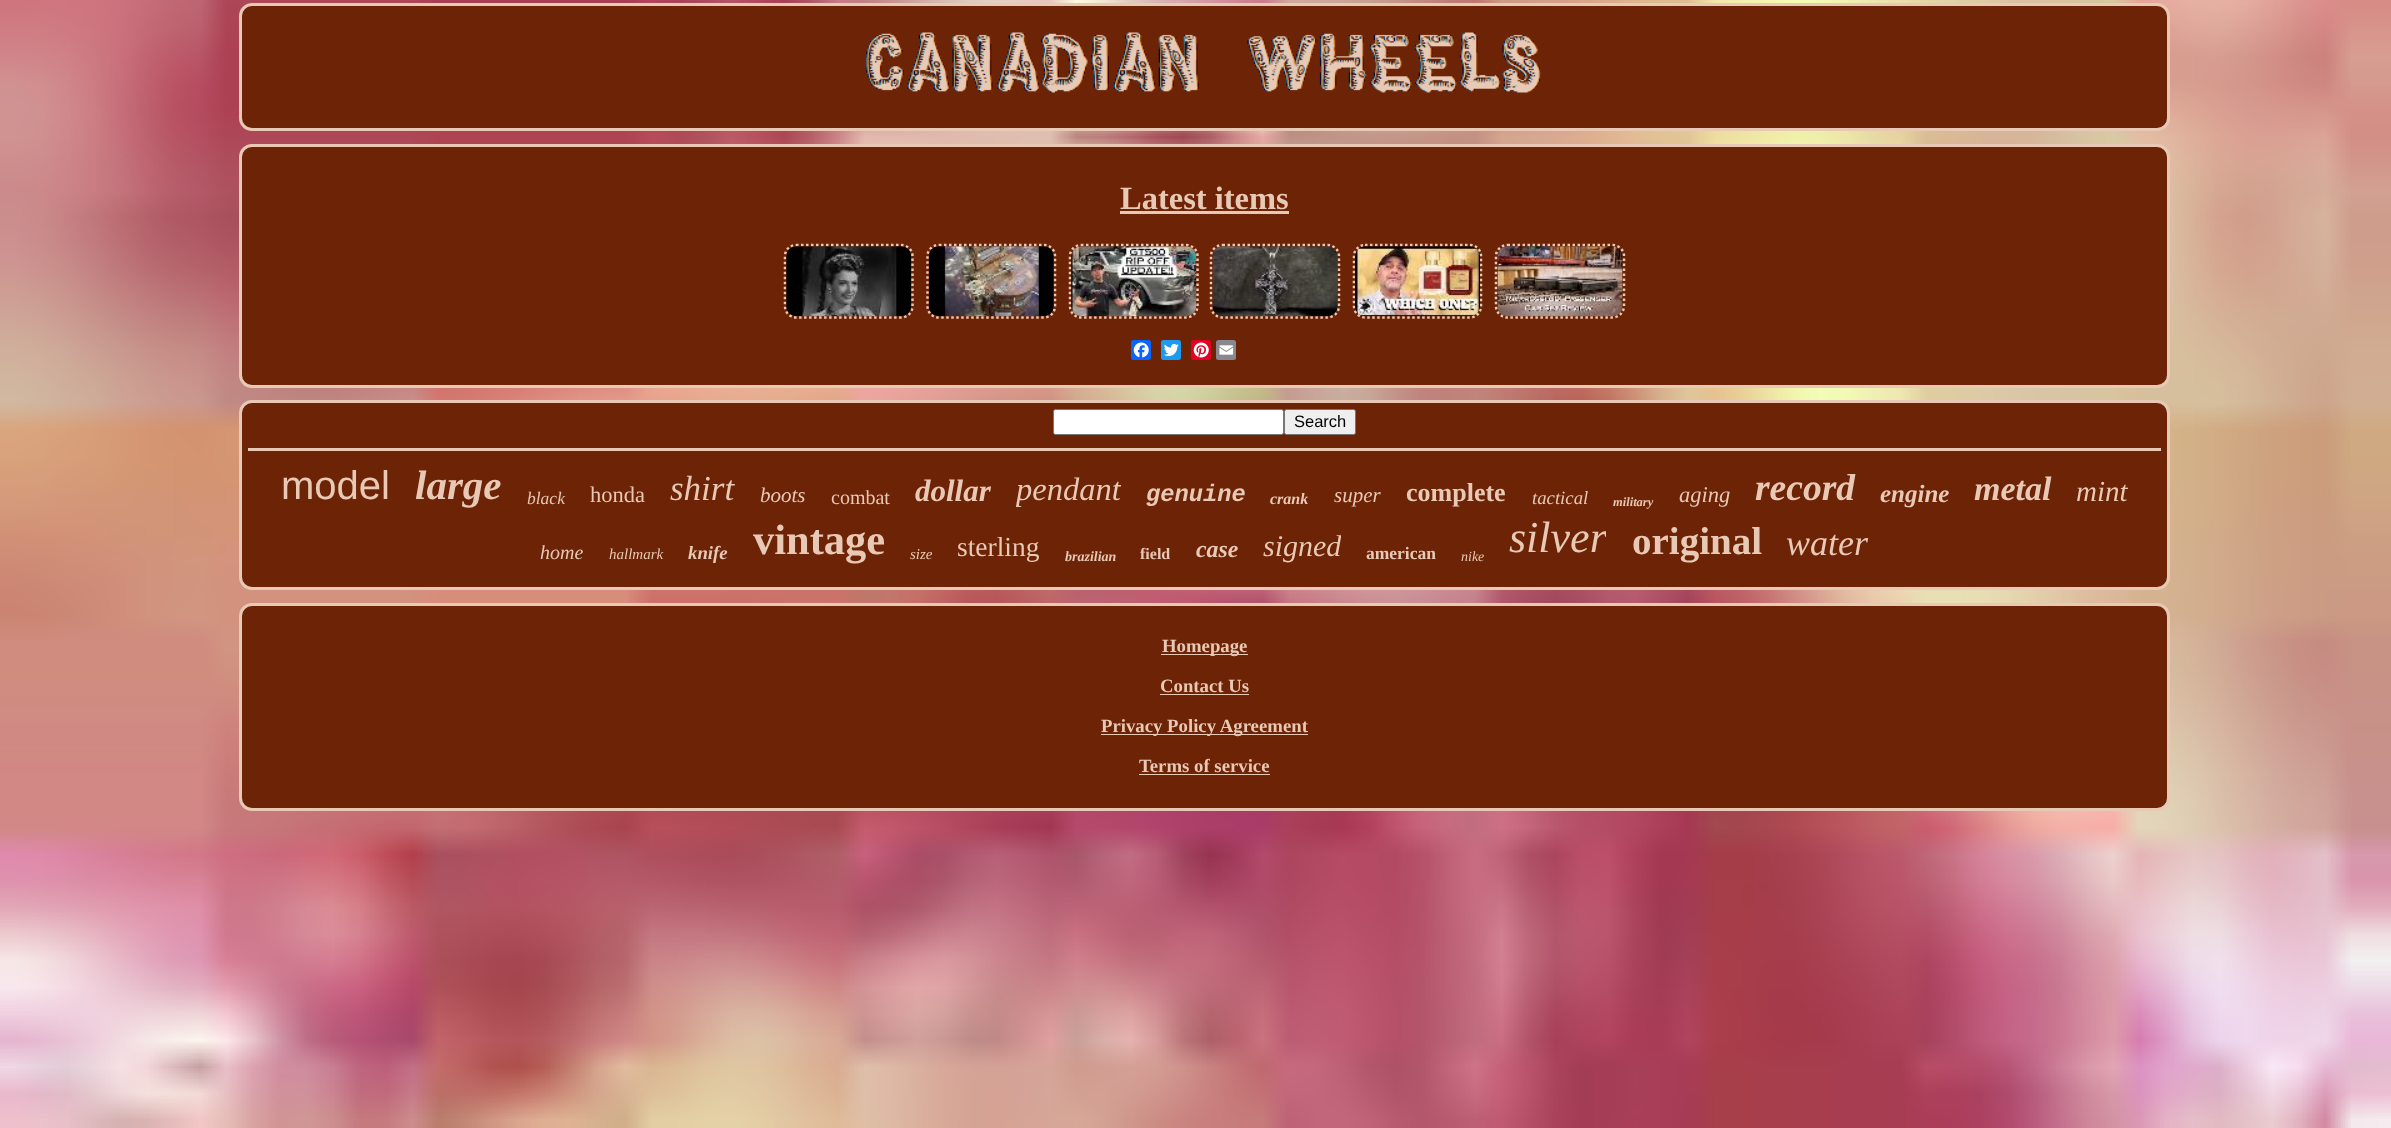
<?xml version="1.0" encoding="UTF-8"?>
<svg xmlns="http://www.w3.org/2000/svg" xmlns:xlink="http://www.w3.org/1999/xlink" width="2391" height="1128">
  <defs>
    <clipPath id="clip1"><rect x="1016" y="471" width="105" height="38" /></clipPath>
    <clipPath id="clip2"><rect x="1334" y="484" width="47" height="25" /></clipPath>
    <clipPath id="clip3"><rect x="1263" y="530" width="78" height="34" /></clipPath>
    <clipPath id="clip4"><rect x="1509" y="514" width="97" height="50" /></clipPath>
  </defs>
  <rect width="100%" height="100%" fill="#ffffff" />
  <image x="0" y="0" width="2391" height="1128" xlink:href="image1.png" />
  <rect x="240.5" y="4.5" width="1928" height="125" rx="11.5" fill="#6d2306" stroke="#e8c9b5" stroke-width="3" />
  <image x="866" y="32" width="675" height="61" xlink:href="image2.png" />
  <rect x="240.5" y="145.5" width="1928" height="241" rx="11.5" fill="#6d2306" stroke="#e8c9b5" stroke-width="3" />
  <rect x="1120" y="211" width="169" height="3" fill="#e8c9b5" />
  <path d="M 796 245 h 105 c 6.5 0 11.5 5 11.5 11 v 50 c 0 6.5 -5 11.5 -11.5 11.5 h -105 c -6 0 -11 -5 -11 -11.5 v -50 c 0 -6 5 -11 11 -11 z" fill="none" stroke="#e8c9b5" stroke-width="2.5" stroke-dasharray="2.5 2.5" />
  <path d="M 939 245 h 105 c 6 0 11 5 11 11 v 50 c 0 6.5 -5 11.5 -11 11.5 h -105 c -6.5 0 -11.5 -5 -11.5 -11.5 v -50 c 0 -6 5 -11 11.5 -11 z" fill="none" stroke="#e8c9b5" stroke-width="2.5" stroke-dasharray="2.5 2.5" />
  <path d="M 1081 245 h 105 c 6.5 0 11.5 5 11.5 11 v 50 c 0 6.5 -5 11.5 -11.5 11.5 h -105 c -6 0 -11 -5 -11 -11.5 v -50 c 0 -6 5 -11 11 -11 z" fill="none" stroke="#e8c9b5" stroke-width="2.5" stroke-dasharray="2.5 2.5" />
  <path d="M 1222.5 245 h 105 c 6 0 11.5 5 11.5 11 v 50 c 0 6.5 -5.5 11.5 -11.5 11.5 h -105 c -6 0 -11.5 -5 -11.5 -11.5 v -50 c 0 -6 5.5 -11 11.5 -11 z" fill="none" stroke="#e8c9b5" stroke-width="2.5" stroke-dasharray="2.5 2.5" />
  <path d="M 1365 245 h 105 c 6 0 11 5 11 11 v 50 c 0 6.5 -5 11.5 -11 11.5 h -105 c -6 0 -11 -5 -11 -11.5 v -50 c 0 -6 5 -11 11 -11 z" fill="none" stroke="#e8c9b5" stroke-width="2.5" stroke-dasharray="2.5 2.5" />
  <path d="M 1507.5 245 h 105 c 6 0 11.5 5 11.5 11 v 50 c 0 6.5 -5.5 11.5 -11.5 11.5 h -105 c -6 0 -11.5 -5 -11.5 -11.5 v -50 c 0 -6 5.5 -11 11.5 -11 z" fill="none" stroke="#e8c9b5" stroke-width="2.5" stroke-dasharray="2.5 2.5" />
  <image x="786" y="246" width="126" height="71" xlink:href="image3.png" />
  <image x="928" y="246" width="126" height="71" xlink:href="image4.png" />
  <image x="1071" y="246" width="126" height="71" xlink:href="image5.png" />
  <image x="1212" y="246" width="126" height="71" xlink:href="image6.png" />
  <image x="1355" y="246" width="125" height="71" xlink:href="image7.png" />
  <image x="1497" y="246" width="126" height="71" xlink:href="image8.png" />
  <rect x="1131" y="340" width="20" height="20" rx="2.5" fill="#0866ff" />
  <image x="1133" y="342" width="16" height="16" xlink:href="image9.png" />
  <rect x="1161" y="340" width="20" height="20" rx="2.5" fill="#1d9bf0" />
  <image x="1164" y="343" width="15" height="14" xlink:href="image10.png" />
  <rect x="1191" y="340" width="20" height="20" rx="2.5" fill="#e60023" />
  <image x="1193" y="342" width="16" height="16" xlink:href="image11.png" />
  <rect x="1216" y="340" width="20" height="20" rx="2.5" fill="#888990" />
  <image x="1219" y="345" width="15" height="10" xlink:href="image12.png" />
  <rect x="240.5" y="401.5" width="1928" height="187" rx="11.5" fill="#6d2306" stroke="#e8c9b5" stroke-width="3" />
  <rect x="1053.5" y="409.5" width="230" height="25" rx="2" fill="#ffffff" stroke="#767676" />
  <rect x="1284.5" y="409.5" width="71" height="25" rx="2" fill="#efefef" stroke="#767676" />
  <rect x="248" y="448" width="1913" height="3" fill="#e8c9b5" />
  <rect x="240.5" y="604.5" width="1928" height="205" rx="11.5" fill="#6d2306" stroke="#e8c9b5" stroke-width="3" />
  <rect x="1161" y="654" width="87" height="1" fill="#e8c9b5" />
  <rect x="1160" y="694" width="89" height="1" fill="#e8c9b5" />
  <rect x="1101" y="734" width="207" height="1" fill="#e8c9b5" />
  <rect x="1139" y="774" width="131" height="1" fill="#e8c9b5" />
  <text x="1120" y="209" style="font-family: Liberation Serif; font-size: 32.5px; font-weight: bold; fill: #e8c9b5">Latest items</text>
  <text x="1294" y="427" style="font-family: Liberation Sans; font-size: 16.5px; fill: #000000">Search</text>
  <text x="281" y="499" style="font-family: Liberation Sans; font-size: 40px; fill: #e8c9b5">model</text>
  <text x="415" y="499" style="font-family: Liberation Serif; font-size: 41px; font-weight: bold; font-style: italic; fill: #e8c9b5">large</text>
  <text x="527" y="504" style="font-family: Liberation Serif; font-size: 17.5px; font-style: italic; fill: #e8c9b5">black</text>
  <text x="590" y="502" style="font-family: Liberation Serif; font-size: 22.5px; fill: #e8c9b5">honda</text>
  <text x="670" y="500" style="font-family: Liberation Serif; font-size: 35px; font-style: italic; fill: #e8c9b5">shirt</text>
  <text x="760" y="502" style="font-family: Liberation Serif; font-size: 21px; font-style: italic; fill: #e8c9b5">boots</text>
  <text x="831" y="504" style="font-family: Liberation Serif; font-size: 20px; fill: #e8c9b5">combat</text>
  <text x="915" y="501" style="font-family: Liberation Serif; font-size: 31px; font-weight: bold; font-style: italic; fill: #e8c9b5">dollar</text>
  <g clip-path="url(#clip1)">
    <text x="1016" y="500" style="font-family: Liberation Serif; font-size: 32.5px; font-style: italic; fill: #e8c9b5">pendant</text>
  </g>
  <text x="1146" y="501" style="font-family: Liberation Mono; font-size: 23.75px; font-weight: bold; font-style: italic; fill: #e8c9b5">genuine</text>
  <text x="1270" y="504" style="font-family: Liberation Serif; font-size: 16px; font-weight: bold; font-style: italic; fill: #e8c9b5">crank</text>
  <g clip-path="url(#clip2)">
    <text x="1334" y="502" style="font-family: Liberation Serif; font-size: 21px; font-style: italic; fill: #e8c9b5">super</text>
  </g>
  <text x="1406" y="501" style="font-family: Liberation Serif; font-size: 26px; font-weight: bold; fill: #e8c9b5">complete</text>
  <text x="1532" y="504" style="font-family: Liberation Serif; font-size: 18.75px; font-style: italic; fill: #e8c9b5">tactical</text>
  <text x="1613" y="506" style="font-family: Liberation Serif; font-size: 12.5px; font-weight: bold; font-style: italic; fill: #e8c9b5">military</text>
  <text x="1679" y="502" style="font-family: Liberation Serif; font-size: 22.5px; font-style: italic; fill: #e8c9b5">aging</text>
  <text x="1755" y="500" style="font-family: Liberation Serif; font-size: 37.5px; font-weight: bold; font-style: italic; fill: #e8c9b5">record</text>
  <text x="1880" y="502" style="font-family: Liberation Serif; font-size: 25px; font-weight: bold; font-style: italic; fill: #e8c9b5">engine</text>
  <text x="1974" y="500" style="font-family: Liberation Serif; font-size: 34px; font-weight: bold; font-style: italic; fill: #e8c9b5">metal</text>
  <text x="2076" y="501" style="font-family: Liberation Serif; font-size: 29px; font-style: italic; fill: #e8c9b5">mint</text>
  <text x="540" y="559" style="font-family: Liberation Serif; font-size: 20px; font-style: italic; fill: #e8c9b5">home</text>
  <text x="609" y="559" style="font-family: Liberation Serif; font-size: 15px; font-style: italic; fill: #e8c9b5">hallmark</text>
  <text x="688" y="559" style="font-family: Liberation Serif; font-size: 18.75px; font-weight: bold; font-style: italic; fill: #e8c9b5">knife</text>
  <text x="753" y="554" style="font-family: Liberation Serif; font-size: 42.5px; font-weight: bold; fill: #e8c9b5">vintage</text>
  <text x="910" y="559" style="font-family: Liberation Serif; font-size: 15px; font-style: italic; fill: #e8c9b5">size</text>
  <text x="957" y="556" style="font-family: Liberation Serif; font-size: 27.5px; fill: #e8c9b5">sterling</text>
  <text x="1065" y="561" style="font-family: Liberation Serif; font-size: 14px; font-weight: bold; font-style: italic; fill: #e8c9b5">brazilian</text>
  <text x="1140" y="559" style="font-family: Liberation Serif; font-size: 16px; font-weight: bold; fill: #e8c9b5">field</text>
  <text x="1196" y="557" style="font-family: Liberation Serif; font-size: 23.75px; font-weight: bold; font-style: italic; fill: #e8c9b5">case</text>
  <g clip-path="url(#clip3)">
    <text x="1263" y="556" style="font-family: Liberation Serif; font-size: 30px; font-style: italic; fill: #e8c9b5">signed</text>
  </g>
  <text x="1366" y="559" style="font-family: Liberation Serif; font-size: 17.5px; font-weight: bold; fill: #e8c9b5">american</text>
  <text x="1461" y="561" style="font-family: Liberation Serif; font-size: 14px; font-style: italic; fill: #e8c9b5">nike</text>
  <g clip-path="url(#clip4)">
    <text x="1509" y="552" style="font-family: Liberation Serif; font-size: 44px; font-style: italic; fill: #e8c9b5">silver</text>
  </g>
  <text x="1632" y="554" style="font-family: Liberation Serif; font-size: 39px; font-weight: bold; fill: #e8c9b5">original</text>
  <text x="1786" y="555" style="font-family: Liberation Serif; font-size: 36px; font-style: italic; fill: #e8c9b5">water</text>
  <text x="1162" y="652" style="font-family: Liberation Serif; font-size: 18.75px; font-weight: bold; fill: #e8c9b5">Homepage</text>
  <text x="1160" y="692" style="font-family: Liberation Serif; font-size: 18.75px; font-weight: bold; fill: #e8c9b5">Contact Us</text>
  <text x="1101" y="732" style="font-family: Liberation Serif; font-size: 18.75px; font-weight: bold; fill: #e8c9b5">Privacy Policy Agreement</text>
  <text x="1139" y="772" style="font-family: Liberation Serif; font-size: 18.75px; font-weight: bold; fill: #e8c9b5">Terms of service</text>
</svg>
